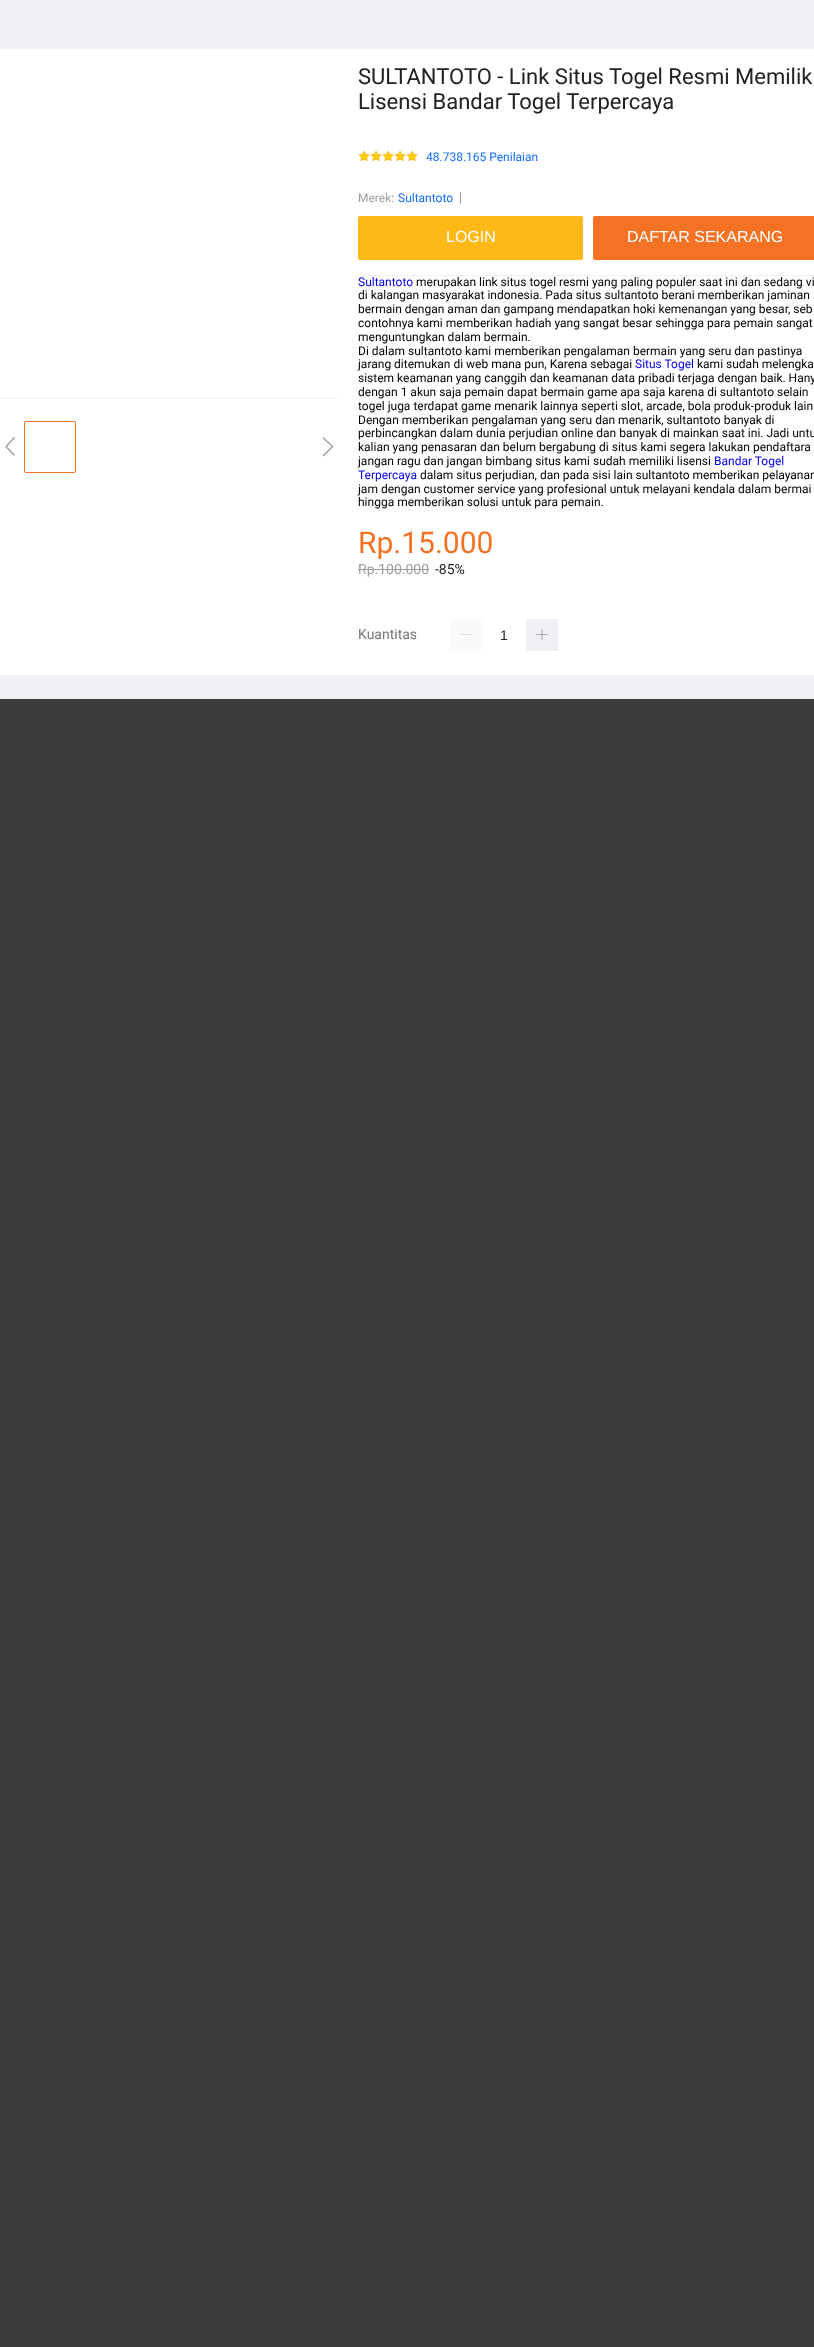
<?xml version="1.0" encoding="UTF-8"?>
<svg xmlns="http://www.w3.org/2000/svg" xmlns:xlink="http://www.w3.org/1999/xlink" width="814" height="2347">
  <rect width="100%" height="100%" fill="#3b3b3b" />
  <rect width="814" height="49" fill="#eff0f5" />
  <rect y="675" width="814" height="24" fill="#eff0f5" />
  <rect y="49" width="814" height="626" fill="#ffffff" />
  <rect y="397" width="338" height="1" fill="#eff0f5" />
  <path d="M 15 455 l -8 -8.5 l 8 -8.5 l -1 -1 l -9 9.5 l 9 9.5 z" fill="#9e9e9e" />
  <rect x="24.5" y="421.5" width="51" height="51" rx="1.5" fill="none" stroke="#f57224" />
  <path d="M 323.5 456.5 l -1 -1 l 9 -9 l -9 -8.5 l 1 -1 l 10 9.5 z" fill="#9e9e9e" />
  <image x="358" y="150" width="12" height="12" xlink:href="image1.png" />
  <image x="370" y="150" width="12" height="12" xlink:href="image1.png" />
  <image x="382" y="150" width="12" height="12" xlink:href="image1.png" />
  <image x="394" y="150" width="12" height="12" xlink:href="image1.png" />
  <image x="406" y="150" width="12" height="12" xlink:href="image1.png" />
  <rect x="358" y="275" width="456" height="1" fill="#eff0f5" />
  <rect x="460" y="192" width="1" height="12" fill="#9e9e9e" />
  <rect x="358" y="216" width="225" height="44" rx="2" fill="#ffb916" />
  <rect x="593" y="216" width="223" height="44" rx="2" fill="#f57224" />
  <rect x="358" y="569" width="71" height="1" fill="#9e9e9e" />
  <rect x="450" y="619" width="32" height="32" fill="#fafafa" />
  <image x="460" y="634" width="12" height="1" xlink:href="image2.png" />
  <rect x="526" y="619" width="32" height="32" fill="#eff0f5" />
  <image x="536" y="628" width="12" height="13" xlink:href="image3.png" />
  <text x="358" y="84" style="font-family: Roboto; font-size: 22px; fill: #212121">SULTANTOTO - Link Situs Togel Resmi Memilik</text>
  <text x="358" y="109" style="font-family: Roboto; font-size: 22px; fill: #212121">Lisensi Bandar Togel Terpercaya</text>
  <text x="426" y="161" style="font-family: Roboto; font-size: 12px; fill: #136cff">48.738.165 Penilaian</text>
  <text x="358" y="202" style="font-family: Roboto; font-size: 12px; fill: #9e9e9e">Merek:</text>
  <text x="398" y="202" style="font-family: Roboto; font-size: 12px; fill: #136cff">Sultantoto</text>
  <text x="446" y="242" style="font-family: Liberation Sans; font-size: 16px; fill: #ffffff">LOGIN</text>
  <text x="627" y="242" style="font-family: Liberation Sans; font-size: 16px; fill: #ffffff">DAFTAR SEKARANG</text>
  <text x="358" y="286" style="font-family: Roboto; font-size: 12px; fill: #0000ee">Sultantoto</text>
  <text x="416" y="286" style="font-family: Roboto; font-size: 12px; fill: #000000">merupakan link situs togel resmi yang paling populer saat ini dan sedang vi</text>
  <text x="358" y="299" style="font-family: Roboto; font-size: 12px; fill: #000000">di kalangan masyarakat indonesia. Pada situs sultantoto berani memberikan jaminan</text>
  <text x="358" y="313" style="font-family: Roboto; font-size: 12px; fill: #000000">bermain dengan aman dan gampang mendapatkan hoki kemenangan yang besar, seb</text>
  <text x="358" y="327" style="font-family: Roboto; font-size: 12px; fill: #000000">contohnya kami memberikan hadiah yang sangat besar sehingga para pemain sangat</text>
  <text x="358" y="341" style="font-family: Roboto; font-size: 12px; fill: #000000">menguntungkan dalam bermain.</text>
  <text x="358" y="355" style="font-family: Roboto; font-size: 12px; fill: #000000">Di dalam sultantoto kami memberikan pengalaman bermain yang seru dan pastinya</text>
  <text x="358" y="368" style="font-family: Roboto; font-size: 12px; fill: #000000">jarang ditemukan di web mana pun, Karena sebagai</text>
  <text x="635" y="368" style="font-family: Roboto; font-size: 12px; fill: #0000ee">Situs Togel</text>
  <text x="697" y="368" style="font-family: Roboto; font-size: 12px; fill: #000000">kami sudah melengka</text>
  <text x="358" y="382" style="font-family: Roboto; font-size: 12px; fill: #000000">sistem keamanan yang canggih dan keamanan data pribadi terjaga dengan baik. Hany</text>
  <text x="358" y="396" style="font-family: Roboto; font-size: 12px; fill: #000000">dengan 1 akun saja pemain dapat bermain game apa saja karena di sultantoto selain</text>
  <text x="358" y="410" style="font-family: Roboto; font-size: 12px; fill: #000000">togel juga terdapat game menarik lainnya seperti slot, arcade, bola produk-produk lain</text>
  <text x="358" y="424" style="font-family: Roboto; font-size: 12px; fill: #000000">Dengan memberikan pengalaman yang seru dan menarik, sultantoto banyak di</text>
  <text x="358" y="437" style="font-family: Roboto; font-size: 12px; fill: #000000">perbincangkan dalam dunia perjudian online dan banyak di mainkan saat ini. Jadi untu</text>
  <text x="358" y="451" style="font-family: Roboto; font-size: 12px; fill: #000000">kalian yang penasaran dan belum bergabung di situs kami segera lakukan pendaftara</text>
  <text x="358" y="465" style="font-family: Roboto; font-size: 12px; fill: #000000">jangan ragu dan jangan bimbang situs kami sudah memiliki lisensi</text>
  <text x="714" y="465" style="font-family: Roboto; font-size: 12px; fill: #0000ee">Bandar Togel</text>
  <text x="358" y="479" style="font-family: Roboto; font-size: 12px; fill: #0000ee">Terpercaya</text>
  <text x="420" y="479" style="font-family: Roboto; font-size: 12px; fill: #000000">dalam situs perjudian, dan pada sisi lain sultantoto memberikan pelayanan</text>
  <text x="358" y="493" style="font-family: Roboto; font-size: 12px; fill: #000000">jam dengan customer service yang profesional untuk melayani kendala dalam bermai</text>
  <text x="358" y="506" style="font-family: Roboto; font-size: 12px; fill: #000000">hingga memberikan solusi untuk para pemain.</text>
  <text x="358" y="553" style="font-family: Roboto; font-size: 30px; fill: #f57224">Rp.15.000</text>
  <text x="358" y="574" style="font-family: Roboto; font-size: 14px; fill: #9e9e9e">Rp.100.000</text>
  <text x="435" y="574" style="font-family: Roboto; font-size: 14px; fill: #212121">-85%</text>
  <text x="358" y="639" style="font-family: Roboto; font-size: 14px; fill: #757575">Kuantitas</text>
  <text x="500" y="640" style="font-family: Liberation Sans; font-size: 14px; fill: #212121">1</text>
</svg>
